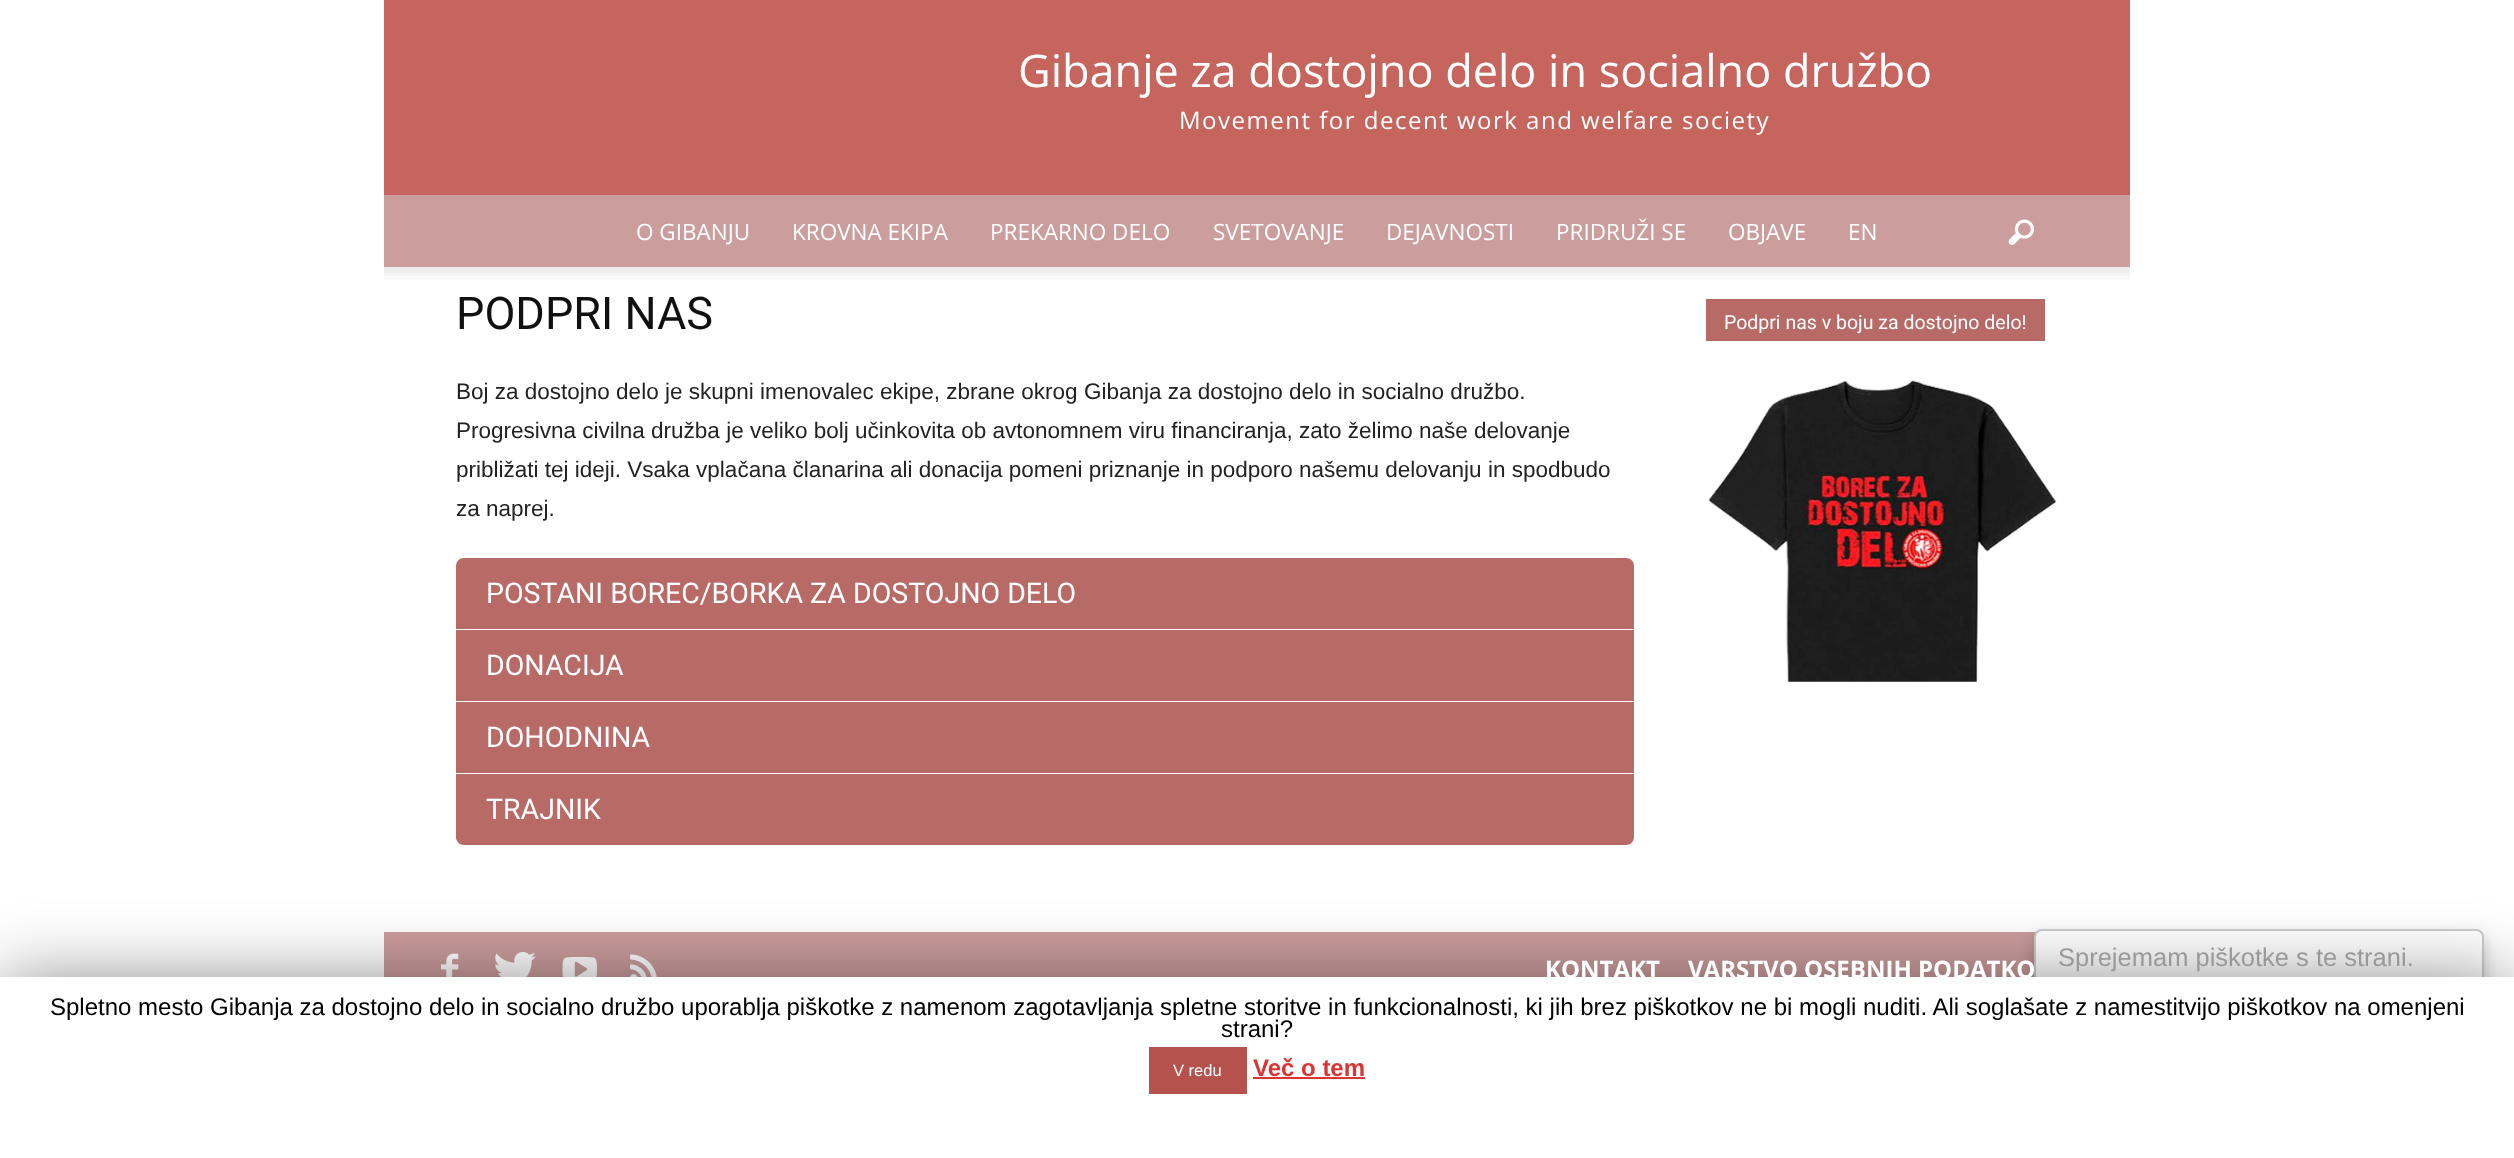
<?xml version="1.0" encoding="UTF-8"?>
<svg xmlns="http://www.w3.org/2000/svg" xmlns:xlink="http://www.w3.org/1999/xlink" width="2514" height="1158">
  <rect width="100%" height="100%" fill="#ffffff" />
  <rect x="384" width="1746" height="195" fill="#c5655e" />
  <rect x="384" y="195" width="1746" height="72" fill="#cc9d9d" />
  <image x="2008" y="219" width="26" height="26" xlink:href="image1.png" />
  <image x="384" y="267" width="1746" height="13" xlink:href="image2.png" />
  <path d="M 464 558 h 1162 c 4.5 0 8 3.5 8 8 v 63 h -1178 v -63 c 0 -4.5 3.5 -8 8 -8 z" fill="#b86a67" />
  <rect x="456" y="630" width="1178" height="71" fill="#b86a67" />
  <rect x="456" y="702" width="1178" height="71" fill="#b86a67" />
  <path d="M 456 774 h 1178 v 63 c 0 4.5 -3.5 8 -8 8 h -1162 c -4.5 0 -8 -3.5 -8 -8 z" fill="#b86a67" />
  <rect x="1706" y="299" width="339" height="42" fill="#b86a67" />
  <image x="1708" y="380" width="349" height="302" xlink:href="image3.png" />
  <rect x="384" y="932" width="1652" height="45" fill="#cc9d9d" />
  <image x="441" y="953" width="18" height="24" xlink:href="image4.png" />
  <image x="495" y="952" width="41" height="25" xlink:href="image5.png" />
  <image x="562" y="956" width="35" height="21" xlink:href="image6.png" />
  <image x="630" y="954" width="27" height="23" xlink:href="image7.png" />
  <rect x="2034" y="936" width="450" height="200" rx="8" fill="#000000" fill-opacity="0.2" filter="blur(7.5px)" />
  <rect x="2035" y="930" width="448" height="197" rx="7" fill="#ffffff" stroke="#cccccc" stroke-width="2" />
  <rect y="984" width="2514" height="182" fill="#000000" fill-opacity="0.5" filter="blur(37.5px)" />
  <rect y="977" width="2514" height="181" fill="#ffffff" />
  <rect x="1149" y="1047" width="98" height="47" fill="#b4534d" />
  <rect x="1253" y="1077" width="112" height="2" fill="#dd3333" />
  <text x="1018" y="87" style="font-family: Open Sans; font-size: 45px; fill: #ffffff">Gibanje za dostojno delo in socialno družbo</text>
  <text x="1179" y="129" style="font-family: Open Sans; font-size: 24px; letter-spacing: 1.5px; fill: #ffffff">Movement for decent work and welfare society</text>
  <text x="636" y="240" style="font-family: Open Sans; font-size: 22.5px; fill: #ffffff">O GIBANJU</text>
  <text x="792" y="240" style="font-family: Open Sans; font-size: 22.5px; fill: #ffffff">KROVNA EKIPA</text>
  <text x="990" y="240" style="font-family: Open Sans; font-size: 22.5px; fill: #ffffff">PREKARNO DELO</text>
  <text x="1213" y="240" style="font-family: Open Sans; font-size: 22.5px; fill: #ffffff">SVETOVANJE</text>
  <text x="1386" y="240" style="font-family: Open Sans; font-size: 22.5px; fill: #ffffff">DEJAVNOSTI</text>
  <text x="1556" y="240" style="font-family: Open Sans; font-size: 22.5px; fill: #ffffff">PRIDRUŽI SE</text>
  <text x="1728" y="240" style="font-family: Open Sans; font-size: 22.5px; fill: #ffffff">OBJAVE</text>
  <text x="1848" y="240" style="font-family: Open Sans; font-size: 22.5px; fill: #ffffff">EN</text>
  <text x="456" y="329" style="font-family: Roboto; font-size: 45px; fill: #111111">PODPRI NAS</text>
  <text x="456" y="399" style="font-family: Liberation Sans; font-size: 22.5px; fill: #222222">Boj za dostojno delo je skupni imenovalec ekipe, zbrane okrog Gibanja za dostojno delo in socialno družbo.</text>
  <text x="456" y="438" style="font-family: Liberation Sans; font-size: 22.5px; fill: #222222">Progresivna civilna družba je veliko bolj učinkovita ob avtonomnem viru financiranja, zato želimo naše delovanje</text>
  <text x="456" y="477" style="font-family: Liberation Sans; font-size: 22.5px; fill: #222222">približati tej ideji. Vsaka vplačana članarina ali donacija pomeni priznanje in podporo našemu delovanju in spodbudo</text>
  <text x="456" y="516" style="font-family: Liberation Sans; font-size: 22.5px; fill: #222222">za naprej.</text>
  <text x="486" y="603" style="font-family: Roboto; font-size: 28.5px; fill: #ffffff">POSTANI BOREC/BORKA ZA DOSTOJNO DELO</text>
  <text x="486" y="675" style="font-family: Roboto; font-size: 28.5px; fill: #ffffff">DONACIJA</text>
  <text x="486" y="747" style="font-family: Roboto; font-size: 28.5px; fill: #ffffff">DOHODNINA</text>
  <text x="486" y="819" style="font-family: Roboto; font-size: 28.5px; fill: #ffffff">TRAJNIK</text>
  <text x="1724" y="329" style="font-family: Roboto; font-size: 19.5px; fill: #ffffff">Podpri nas v boju za dostojno delo!</text>
  <text x="1545" y="978" style="font-family: Open Sans; font-size: 24px; font-weight: bold; fill: #ffffff">KONTAKT</text>
  <text x="1688" y="978" style="font-family: Open Sans; font-size: 24px; font-weight: bold; fill: #ffffff">VARSTVO OSEBNIH PODATKO</text>
  <text x="2058" y="966" style="font-family: Liberation Sans; font-size: 25.5px; fill: #999999">Sprejemam piškotke s te strani.</text>
  <text x="50" y="1015" style="font-family: Liberation Sans; font-size: 24px; fill: #000000">Spletno mesto Gibanja za dostojno delo in socialno družbo uporablja piškotke z namenom zagotavljanja spletne storitve in funkcionalnosti, ki jih brez piškotkov ne bi mogli nuditi. Ali soglašate z namestitvijo piškotkov na omenjeni</text>
  <text x="1221" y="1037" style="font-family: Liberation Sans; font-size: 24px; fill: #000000">strani?</text>
  <text x="1173" y="1076" style="font-family: Liberation Sans; font-size: 16.5px; fill: #ffffff">V redu</text>
  <text x="1253" y="1076" style="font-family: Liberation Sans; font-size: 24px; font-weight: bold; fill: #dd3333">Več o tem</text>
</svg>
